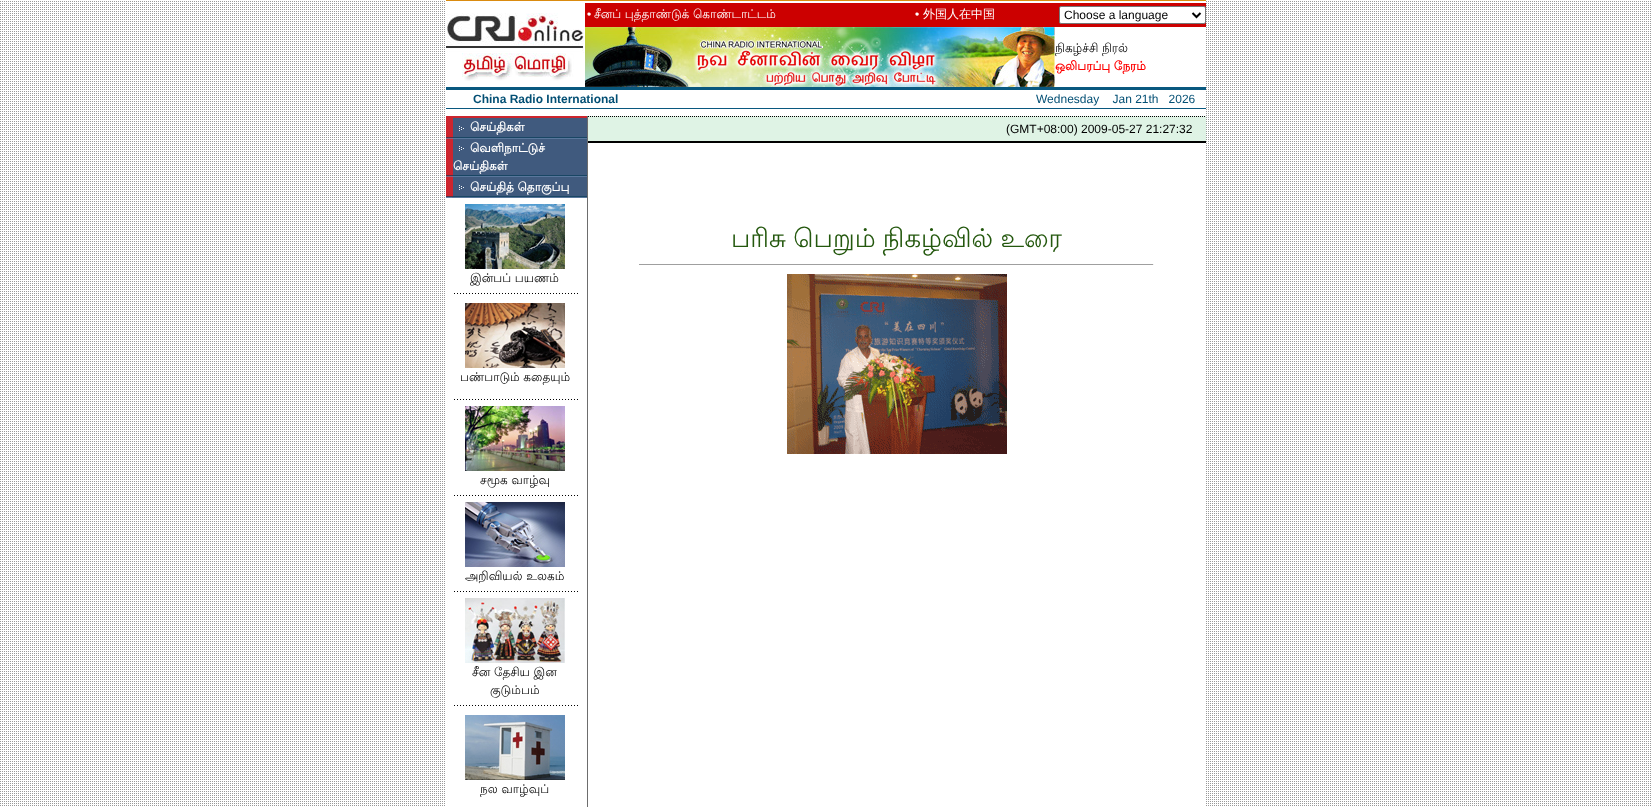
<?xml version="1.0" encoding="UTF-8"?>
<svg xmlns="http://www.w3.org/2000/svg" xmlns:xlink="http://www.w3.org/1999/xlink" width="1651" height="807">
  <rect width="100%" height="100%" fill="#ffffff" />
  <image x="0" y="1" width="1651" height="805" xlink:href="image1.png" />
  <rect x="446" width="760" height="1" fill="#da8b0f" />
  <rect x="446" y="1" width="759" height="85" fill="#ffffff" />
  <image x="446" y="13" width="138" height="68" xlink:href="image2.png" />
  <rect x="585" y="3" width="621" height="24" fill="#cc0000" />
  <rect x="1059.5" y="6.5" width="146" height="17" rx="1.5" fill="#ffffff" stroke="#767676" />
  <path d="M 1192.5 13 l 4 4 l 4 -4" fill="none" stroke="#000000" stroke-width="2" />
  <image x="585" y="27" width="470" height="60" xlink:href="image3.png" />
  <rect x="446" y="91" width="759" height="25" fill="#ffffff" />
  <rect x="446" y="87" width="760" height="3" fill="#09587f" />
  <rect x="446" y="108" width="760" height="1" fill="#09587f" />
  <rect x="446" y="143" width="759" height="663" fill="#ffffff" />
  <rect x="446" y="116" width="141" height="2" fill="#cc252e" />
  <rect x="446" y="118" width="7" height="19" fill="#cc252e" />
  <rect x="453" y="118" width="134" height="19" fill="#405a7e" />
  <image x="459" y="126" width="5" height="5" xlink:href="image4.png" />
  <image x="453" y="137" width="134" height="2" xlink:href="image5.png" />
  <image x="446" y="137" width="7" height="2" xlink:href="image6.png" />
  <rect x="446" y="139" width="7" height="36" fill="#cc252e" />
  <rect x="453" y="139" width="134" height="36" fill="#405a7e" />
  <image x="459" y="146" width="5" height="5" xlink:href="image4.png" />
  <image x="453" y="175" width="134" height="2" xlink:href="image5.png" />
  <image x="446" y="175" width="7" height="2" xlink:href="image6.png" />
  <rect x="446" y="177" width="7" height="19" fill="#cc252e" />
  <rect x="453" y="177" width="134" height="19" fill="#405a7e" />
  <image x="459" y="185" width="5" height="5" xlink:href="image4.png" />
  <image x="453" y="196" width="134" height="2" xlink:href="image5.png" />
  <image x="446" y="196" width="7" height="2" xlink:href="image7.png" />
  <image x="465" y="204" width="100" height="65" xlink:href="image8.png" />
  <image x="454" y="293" width="124" height="1" xlink:href="image9.png" />
  <image x="465" y="303" width="100" height="65" xlink:href="image10.png" />
  <image x="454" y="399" width="124" height="1" xlink:href="image9.png" />
  <image x="465" y="406" width="100" height="65" xlink:href="image11.png" />
  <image x="454" y="495" width="124" height="1" xlink:href="image9.png" />
  <image x="465" y="502" width="100" height="65" xlink:href="image12.png" />
  <image x="454" y="591" width="124" height="1" xlink:href="image9.png" />
  <image x="465" y="598" width="100" height="65" xlink:href="image13.png" />
  <image x="454" y="705" width="124" height="1" xlink:href="image9.png" />
  <image x="465" y="715" width="100" height="65" xlink:href="image14.png" />
  <rect x="587" y="116" width="1" height="691" fill="#6d6d6d" />
  <rect x="588" y="116" width="618" height="25" fill="#dff3e5" />
  <path d="M 588 116.5 h 618" fill="none" stroke="#000000" stroke-dasharray="1 1" />
  <rect x="588" y="141" width="618" height="2" fill="#000000" />
  <rect x="639" y="264" width="515" height="1" fill="#9f9f9f" />
  <rect x="1153" y="264" width="1" height="1" fill="#eeeeee" />
  <image x="787" y="274" width="220" height="180" xlink:href="image15.png" />
  <text x="587" y="18" style="font-family: Liberation Sans; font-size: 12px; fill: #ffffff">•</text>
  <text x="594" y="18" style="font-family: Lohit Tamil; font-size: 12px; fill: #ffffff">சீனப் புத்தாண்டுக் கொண்டாட்டம்</text>
  <text x="915" y="18" style="font-family: Liberation Sans; font-size: 12px; fill: #ffffff">•</text>
  <text x="923" y="18" style="font-family: WenQuanYi Zen Hei; font-size: 12px; font-weight: 500; fill: #ffffff">外国人在中国</text>
  <text x="1064" y="19" style="font-family: Liberation Sans; font-size: 12px; fill: #000000">Choose a language</text>
  <text x="1055" y="52" style="font-family: Lohit Tamil; font-size: 12px; fill: #000000">நிகழ்ச்சி நிரல்</text>
  <text x="1055" y="70" style="font-family: Lohit Tamil; font-size: 12px; font-weight: bold; fill: #ff0000">ஒலிபரப்பு நேரம்</text>
  <text x="473" y="103" style="font-family: Liberation Sans; font-size: 12px; font-weight: bold; fill: #034f74">China Radio International</text>
  <text x="1036" y="103" style="font-family: Liberation Sans; font-size: 12px; fill: #034f74" xml:space="preserve">Wednesday    Jan 21th   2026</text>
  <text x="470" y="131" style="font-family: Lohit Tamil; font-size: 12px; font-weight: bold; fill: #ffffff">செய்திகள்</text>
  <text x="470" y="152" style="font-family: Lohit Tamil; font-size: 12px; font-weight: bold; fill: #ffffff">வெளிநாட்டுச்</text>
  <text x="453" y="170" style="font-family: Lohit Tamil; font-size: 12px; font-weight: bold; fill: #ffffff">செய்திகள்</text>
  <text x="470" y="191" style="font-family: Lohit Tamil; font-size: 12px; font-weight: bold; fill: #ffffff">செய்தித் தொகுப்பு</text>
  <text x="470" y="282" style="font-family: Lohit Tamil; font-size: 12px; fill: #000000">இன்பப் பயணம்</text>
  <text x="460" y="381" style="font-family: Lohit Tamil; font-size: 12px; fill: #000000">பண்பாடும் கதையும்</text>
  <text x="480" y="484" style="font-family: Lohit Tamil; font-size: 12px; fill: #000000">சமூக வாழ்வு</text>
  <text x="465" y="580" style="font-family: Lohit Tamil; font-size: 12px; fill: #000000">அறிவியல் உலகம்</text>
  <text x="472" y="676" style="font-family: Lohit Tamil; font-size: 12px; fill: #000000">சீன தேசிய இன</text>
  <text x="490" y="694" style="font-family: Lohit Tamil; font-size: 12px; fill: #000000">குடும்பம்</text>
  <text x="480" y="793" style="font-family: Lohit Tamil; font-size: 12px; fill: #000000">நல வாழ்வுப்</text>
  <text x="1006" y="133" style="font-family: Liberation Sans; font-size: 12px; fill: #000000">(GMT+08:00) 2009-05-27 21:27:32</text>
  <text x="731" y="247" word-spacing="-0.5" style="font-family: Lohit Tamil; font-size: 26px; fill: #24580e">பரிசு பெறும் நிகழ்வில் உரை</text>
</svg>
